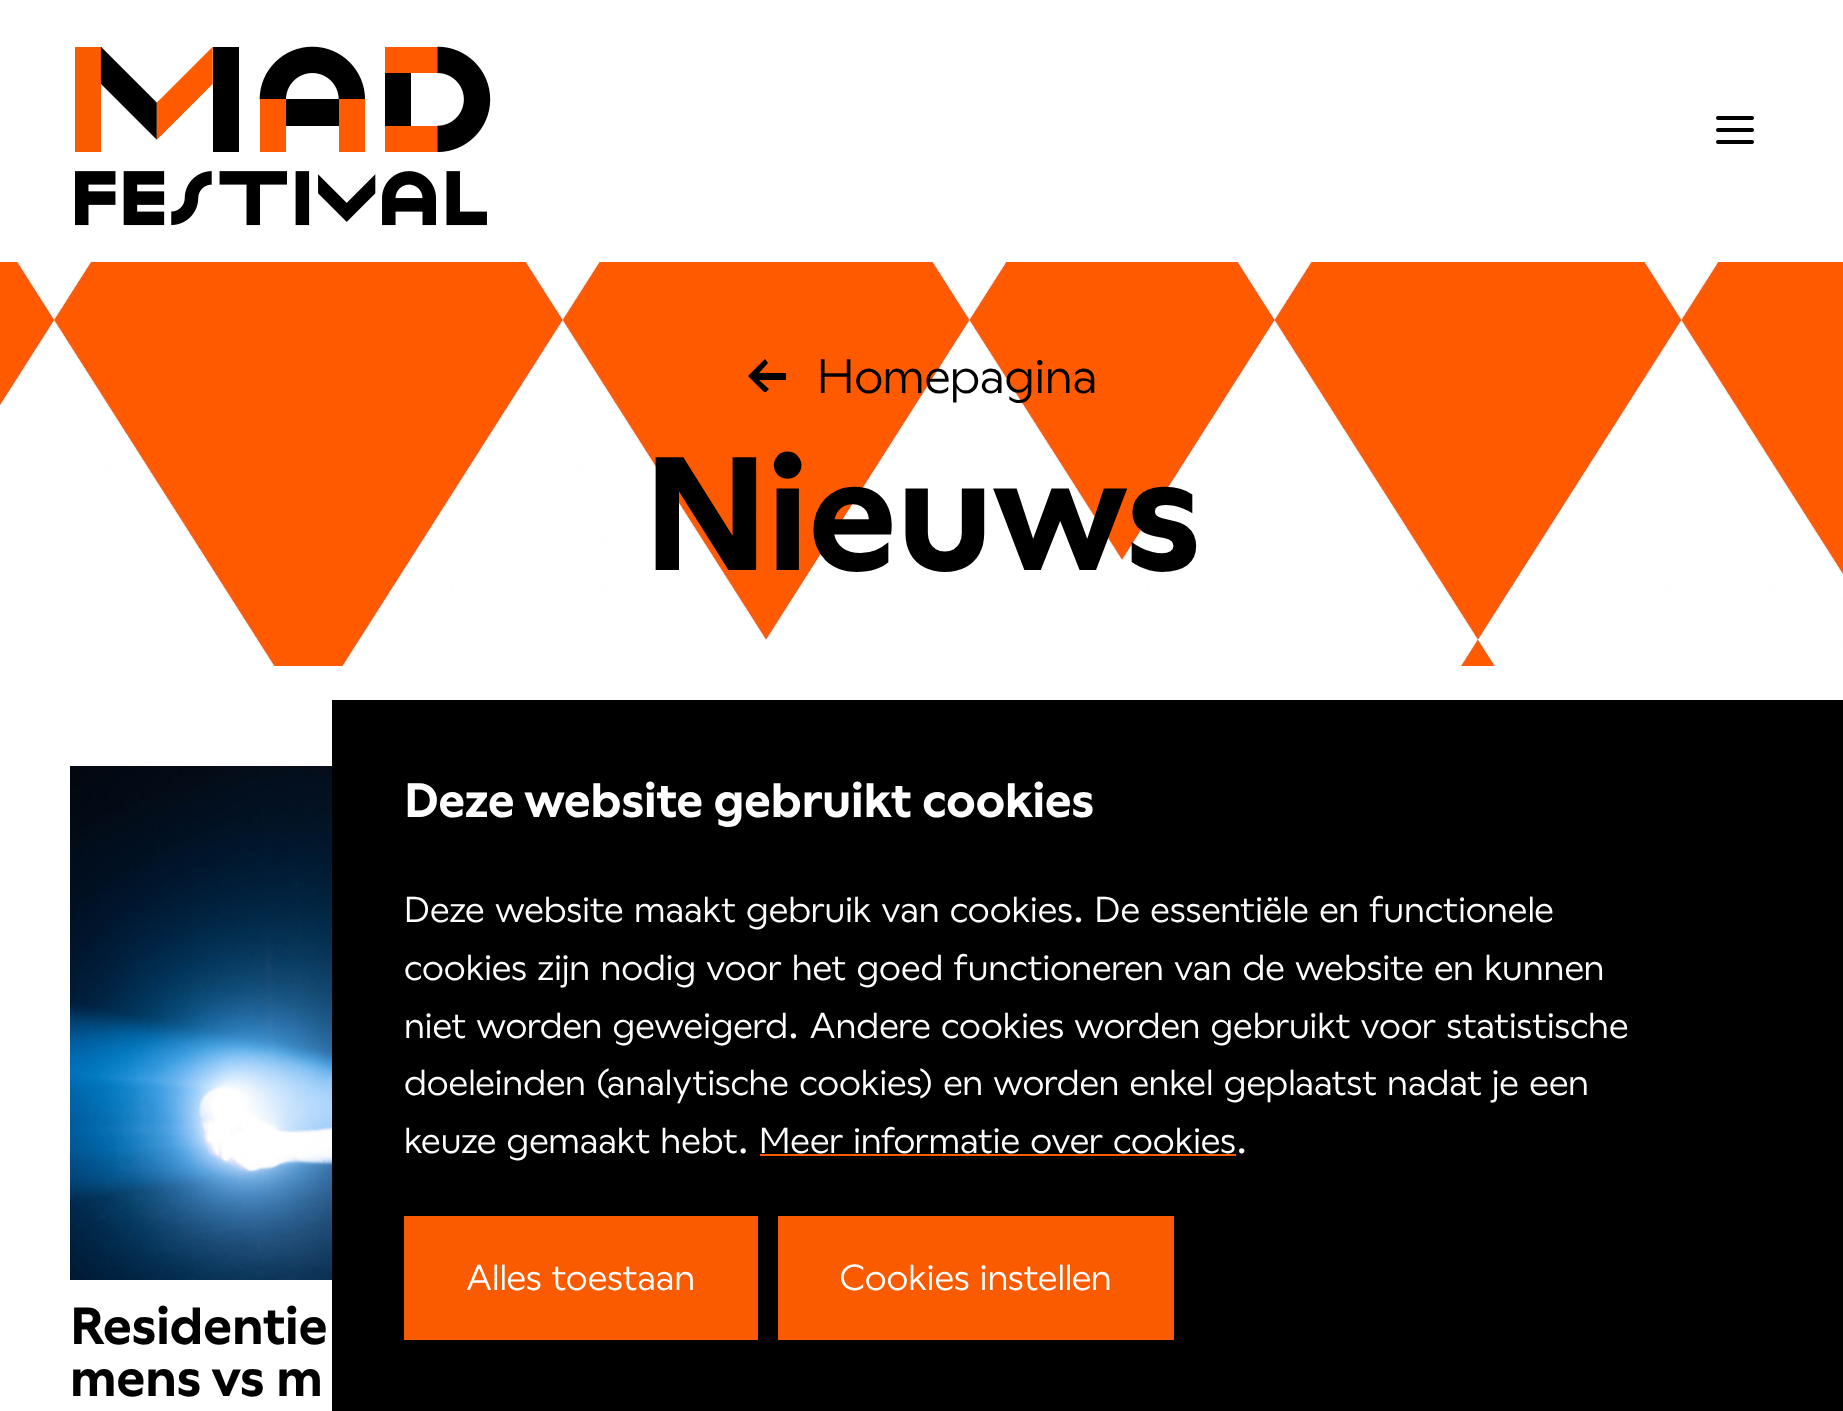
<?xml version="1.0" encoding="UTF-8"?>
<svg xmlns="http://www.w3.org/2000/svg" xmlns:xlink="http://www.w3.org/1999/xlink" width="1843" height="1411">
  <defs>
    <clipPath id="clip1"><rect x="746" y="358" width="40" height="34" /></clipPath>
  </defs>
  <rect width="100%" height="100%" fill="#ffffff" />
  <image x="0" y="262" width="1843" height="404" xlink:href="image1.png" />
  <image x="75" y="46" width="416" height="180" xlink:href="image2.png" />
  <rect x="1716" y="116" width="38" height="4" rx="2" fill="#000000" />
  <rect x="1716" y="128" width="38" height="4" rx="2" fill="#000000" />
  <rect x="1716" y="140" width="38" height="4" rx="2" fill="#000000" />
  <g clip-path="url(#clip1)">
    <path d="M 788 380 v -7 h -29 l 9 -10 l -3 -4 l -17 17 l 17 17 l 4 -4 l -10 -9 z" fill="#000000" />
  </g>
  <image x="70" y="766" width="262" height="514" xlink:href="image3.png" />
  <rect x="332" y="700" width="1511" height="711" fill="#000000" />
  <rect x="404" y="1216" width="354" height="124" fill="#fa5a00" />
  <rect x="778" y="1216" width="396" height="124" fill="#fa5a00" />
  <text x="817" y="393" style="font-family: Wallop; font-size: 48px; fill: #000000">Homepagina</text>
  <text x="643" y="570" style="font-family: Wallop; font-size: 160px; font-weight: 600; fill: #000000">Nieuws</text>
  <text x="70" y="1344" style="font-family: Wallop; font-size: 52px; font-weight: 600; fill: #000000">Residentie</text>
  <text x="70" y="1396" style="font-family: Wallop; font-size: 52px; font-weight: 600; fill: #000000">mens vs m</text>
  <text x="404" y="817" style="font-family: Wallop; font-size: 48px; font-weight: 600; fill: #ffffff">Deze website gebruikt cookies</text>
  <text x="404" y="922" style="font-family: Wallop; font-size: 36px; fill: #ffffff">Deze website maakt gebruik van cookies. De essentiële en functionele</text>
  <text x="404" y="980" style="font-family: Wallop; font-size: 36px; fill: #ffffff">cookies zijn nodig voor het goed functioneren van de website en kunnen</text>
  <text x="404" y="1038" style="font-family: Wallop; font-size: 36px; fill: #ffffff">niet worden geweigerd. Andere cookies worden gebruikt voor statistische</text>
  <text x="404" y="1095" style="font-family: Wallop; font-size: 36px; fill: #ffffff">doeleinden (analytische cookies) en worden enkel geplaatst nadat je een</text>
  <text x="404" y="1153" style="font-family: Wallop; font-size: 36px; fill: #ffffff">keuze gemaakt hebt. Meer informatie over cookies.</text>
  <rect x="760" y="1154" width="476" height="2" fill="#fa5a00" />
  <text x="466" y="1290" style="font-family: Wallop; font-size: 36px; fill: #ffffff">Alles toestaan</text>
  <text x="839" y="1290" style="font-family: Wallop; font-size: 36px; fill: #ffffff">Cookies instellen</text>
</svg>
